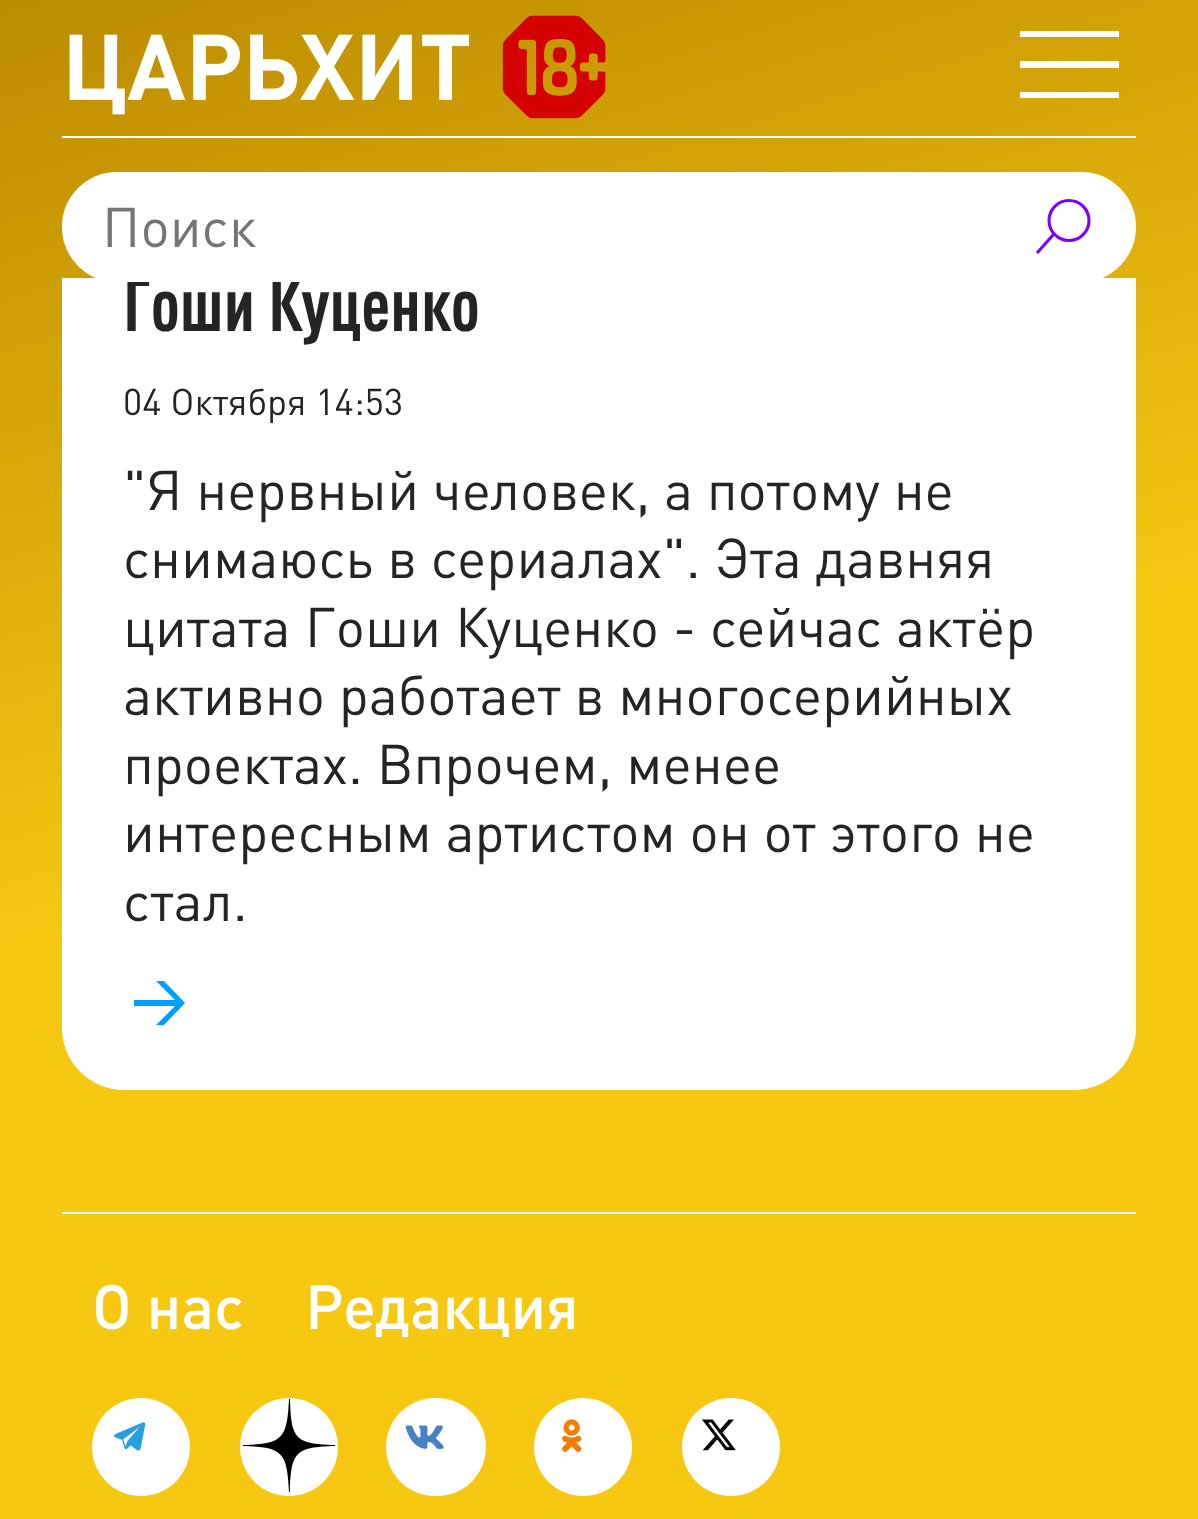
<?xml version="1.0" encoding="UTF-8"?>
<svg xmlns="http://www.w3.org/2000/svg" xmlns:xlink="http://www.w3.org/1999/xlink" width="1198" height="1519">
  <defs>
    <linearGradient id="g1" gradientUnits="userSpaceOnUse" x1="335" y1="-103" x2="874" y2="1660"><stop offset="0" stop-color="#bb8b00" /><stop offset="0.5" stop-color="#f6c812" /><stop offset="1" stop-color="#f6c812" /></linearGradient>
    <linearGradient id="g2" gradientUnits="userSpaceOnUse" x1="335" y1="-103" x2="863" y2="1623"><stop offset="0" stop-color="#bb8b00" /><stop offset="0.51" stop-color="#f6c812" /><stop offset="0.85" stop-color="#f6c812" /></linearGradient>
  </defs>
  <rect width="100%" height="100%" fill="#ffffff" />
  <rect y="278" width="1198" height="1241" fill="url(#g1)" />
  <rect x="62" y="-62" width="1074" height="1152" rx="62" fill="#ffffff" />
  <rect width="1198" height="278" fill="url(#g2)" />
  <rect x="62" y="136" width="1074" height="2" fill="#ffffff" />
  <image x="69" y="15" width="537" height="104" xlink:href="image1.png" />
  <path d="M 1020 61 h 99 v 7 h -99 z m 0 31 h 99 v 6 h -99 z m 0 -61 h 99 v 6 h -99 z" fill="#ffffff" />
  <path d="M 156 1025 l 19 -19 h -41 v -6 h 41 l -19 -19 h 8 l 21 22 l -21 22 z" fill="#009fff" />
  <rect x="62" y="1212" width="1074" height="2" fill="#ffffff" />
  <circle cx="141" cy="1447" r="49" fill="#ffffff" />
  <image x="114" y="1422" width="32" height="29" xlink:href="image2.png" />
  <circle cx="289" cy="1447" r="49" fill="#ffffff" />
  <path d="M 335 1446 v -1 c -40 -1 -44 -6 -45 -46 h -1 c -2 40 -6 45 -46 46 v 1 c 40 1 44 6 46 46 h 1 c 1 -40 5 -45 45 -46 z" fill="#000000" />
  <rect x="386" y="1398" width="100" height="98" rx="49" fill="#ffffff" />
  <image x="405" y="1425" width="39" height="24" xlink:href="image3.png" />
  <circle cx="583" cy="1447" r="49" fill="#ffffff" />
  <image x="562" y="1419" width="20" height="33" xlink:href="image4.png" />
  <circle cx="731" cy="1447" r="49" fill="#ffffff" />
  <image x="702" y="1419" width="34" height="32" xlink:href="image5.png" />
  <text x="123" y="331" style="font-family: DIN; font-size: 73.75px; font-weight: bold; fill: #242424">Гоши Куценко</text>
  <rect x="64" y="174" width="1070" height="106" rx="53" fill="#ffffff" stroke="#ffffff" stroke-width="4" />
  <circle cx="1069" cy="220.5" r="20" fill="none" stroke="#8000ff" stroke-width="3.1" />
  <path d="M 1037 253 l 16.5 -18.5" fill="none" stroke="#8000ff" stroke-width="3.1" />
  <text x="102" y="247" style="font-family: DIN; font-size: 55.25px; fill: #757575">Поиск</text>
  <text x="123" y="415" style="font-family: DIN; font-size: 36.75px; fill: #242424">04 Октября 14:53</text>
  <text x="123" y="510" style="font-family: DIN; font-size: 55.25px; fill: #242424">"Я нервный человек, а потому не</text>
  <text x="123" y="578" style="font-family: DIN; font-size: 55.25px; fill: #242424">снимаюсь в сериалах". Эта давняя</text>
  <text x="123" y="647" style="font-family: DIN; font-size: 55.25px; fill: #242424">цитата Гоши Куценко - сейчас актёр</text>
  <text x="123" y="715" style="font-family: DIN; font-size: 55.25px; fill: #242424">активно работает в многосерийных</text>
  <text x="123" y="784" style="font-family: DIN; font-size: 55.25px; fill: #242424">проектах. Впрочем, менее</text>
  <text x="123" y="852" style="font-family: DIN; font-size: 55.25px; fill: #242424">интересным артистом он от этого не</text>
  <text x="123" y="921" style="font-family: DIN; font-size: 55.25px; fill: #242424">стал.</text>
  <text x="92" y="1329" style="font-family: DIN; font-size: 61.5px; font-weight: 500; fill: #ffffff">О нас</text>
  <text x="305" y="1329" style="font-family: DIN; font-size: 61.5px; font-weight: 500; fill: #ffffff">Редакция</text>
</svg>
